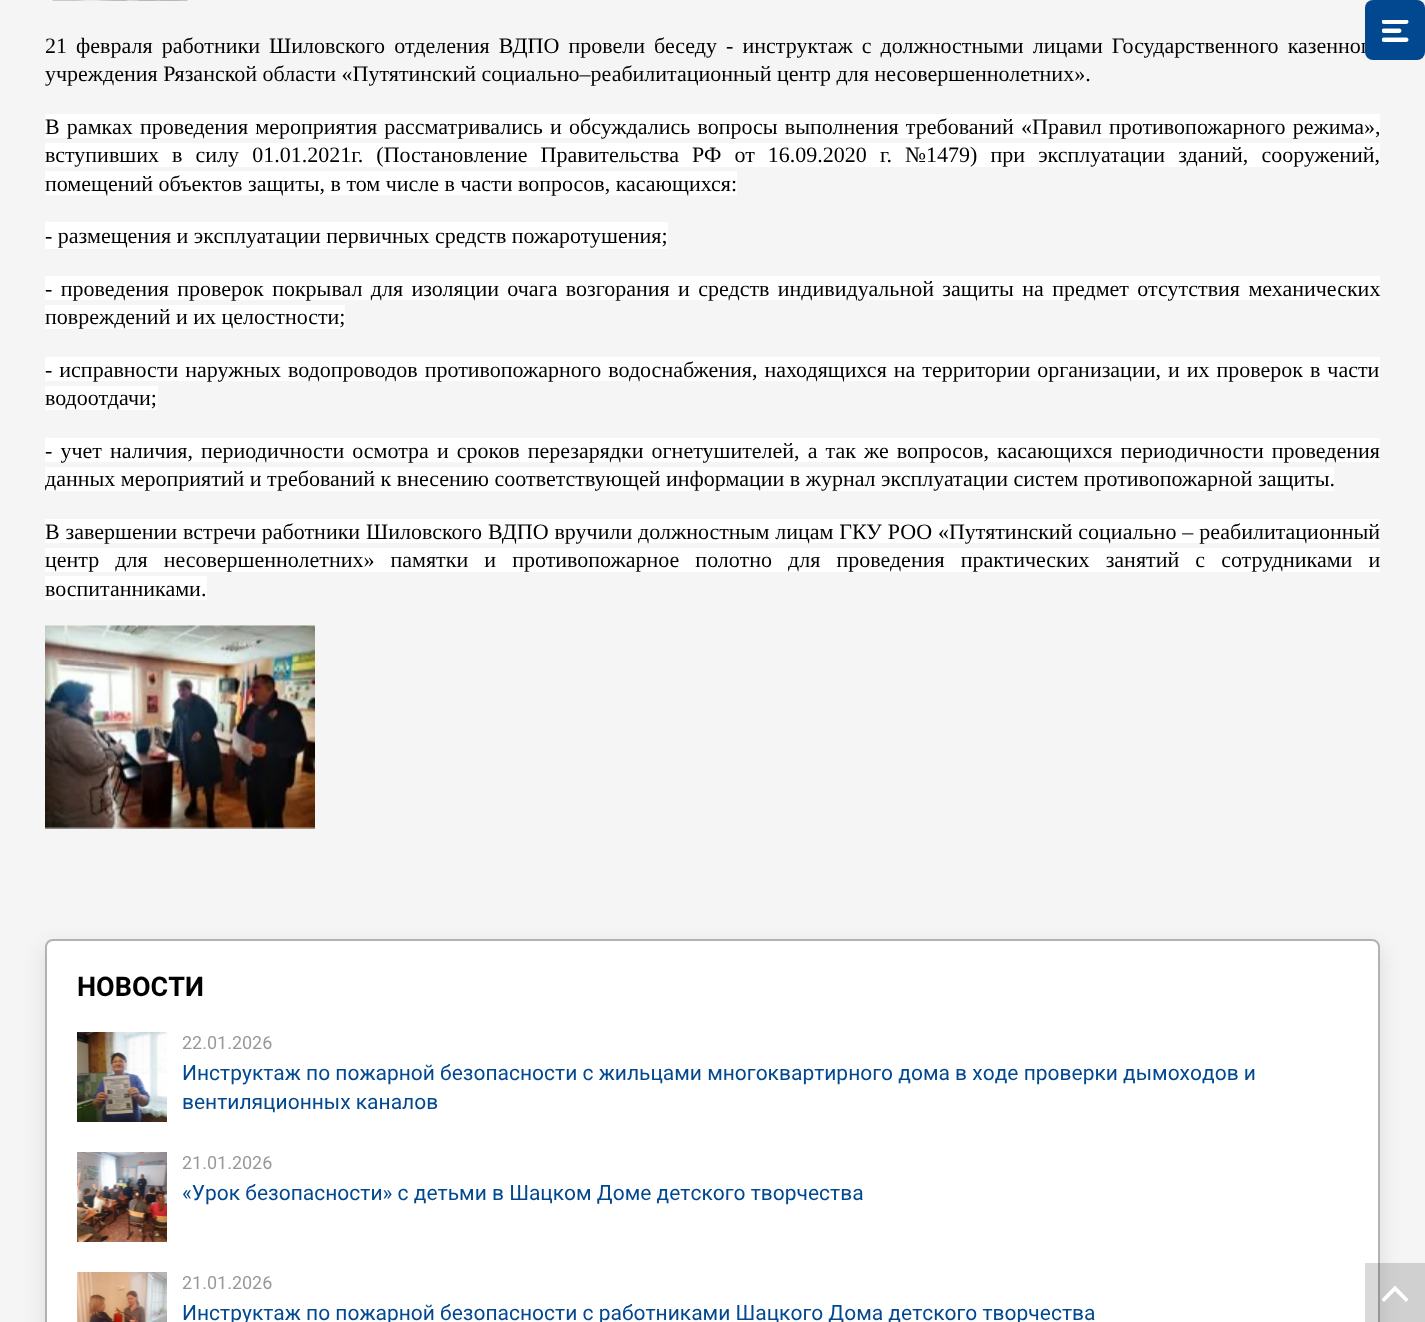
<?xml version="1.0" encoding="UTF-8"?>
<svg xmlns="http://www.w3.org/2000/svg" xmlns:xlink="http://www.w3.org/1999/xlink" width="1425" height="1322">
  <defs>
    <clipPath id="clip1"><rect x="1382" y="1286" width="27" height="16" /></clipPath>
  </defs>
  <rect width="100%" height="100%" fill="#f5f5f5" />
  <image x="52" y="0" width="136" height="1" xlink:href="image2.png" />
  <rect x="45" y="114" width="1335" height="24" fill="#ffffff" />
  <rect x="45" y="143" width="1335" height="24" fill="#ffffff" />
  <rect x="45" y="171" width="692" height="24" fill="#ffffff" />
  <rect x="45" y="222" width="623" height="27" fill="#ffffff" />
  <rect x="45" y="276" width="1335" height="24" fill="#ffffff" />
  <rect x="45" y="305" width="300" height="24" fill="#ffffff" />
  <rect x="45" y="357" width="1335" height="24" fill="#ffffff" />
  <rect x="45" y="386" width="113" height="24" fill="#ffffff" />
  <rect x="45" y="438" width="1335" height="24" fill="#ffffff" />
  <rect x="45" y="467" width="1289" height="24" fill="#ffffff" />
  <rect x="45" y="519" width="1335" height="24" fill="#ffffff" />
  <rect x="45" y="548" width="1335" height="24" fill="#ffffff" />
  <rect x="45" y="576" width="162" height="24" fill="#ffffff" />
  <image x="45" y="625" width="270" height="204" xlink:href="image3.png" />
  <rect x="45" y="947" width="1335" height="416" rx="8" fill="#000000" fill-opacity="0.1" filter="blur(11px)" />
  <rect x="45" y="939" width="1335" height="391" rx="8" fill="#ffffff" />
  <rect x="46" y="940" width="1333" height="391" rx="7" fill="none" stroke="#000000" stroke-opacity="0.3" stroke-width="2" />
  <image x="77" y="1032" width="90" height="90" xlink:href="image4.png" />
  <image x="77" y="1152" width="90" height="90" xlink:href="image5.png" />
  <image x="77" y="1272" width="90" height="50" xlink:href="image6.png" />
  <rect x="1365" y="1263" width="60" height="59" fill="#000000" fill-opacity="0.15" />
  <g clip-path="url(#clip1)">
    <path d="M 1381.5 1299.5 l 13.5 -14 l 13.5 14 l -2.5 2.5 l -11 -11 l -11 11 z" fill="#ffffff" fill-rule="evenodd" />
  </g>
  <text x="45" y="53" word-spacing="3.6" style="font-family: Liberation Serif; font-size: 22px; fill: #000000">21 февраля работники Шиловского отделения ВДПО провели беседу - инструктаж с должностными лицами Государственного казенног</text>
  <rect x="1365" width="60" height="60" rx="8" fill="#024890" />
  <image x="1382" y="20" width="27" height="22" xlink:href="image1.png" />
  <text x="45" y="81" style="font-family: Liberation Serif; font-size: 22px; fill: #000000">учреждения Рязанской области «Путятинский социально–реабилитационный центр для несовершеннолетних».</text>
  <text x="45" y="134" word-spacing="1.7" style="font-family: Liberation Serif; font-size: 22px; fill: #000000">В рамках проведения мероприятия рассматривались и обсуждались вопросы выполнения требований «Правил противопожарного режима»,</text>
  <text x="45" y="162" word-spacing="7.6" style="font-family: Liberation Serif; font-size: 22px; fill: #000000">вступивших в силу 01.01.2021г. (Постановление Правительства РФ от 16.09.2020 г. №1479) при эксплуатации зданий, сооружений,</text>
  <text x="45" y="191" style="font-family: Liberation Serif; font-size: 22px; fill: #000000">помещений объектов защиты, в том числе в части вопросов, касающихся:</text>
  <text x="45" y="243" style="font-family: Liberation Serif; font-size: 22px; fill: #000000">- размещения и эксплуатации первичных средств пожаротушения;</text>
  <text x="45" y="296" word-spacing="2.9" style="font-family: Liberation Serif; font-size: 22px; fill: #000000">- проведения проверок покрывал для изоляции очага возгорания и средств индивидуальной защиты на предмет отсутствия механических</text>
  <text x="45" y="324" style="font-family: Liberation Serif; font-size: 22px; fill: #000000">повреждений и их целостности;</text>
  <text x="45" y="377" word-spacing="1.5" style="font-family: Liberation Serif; font-size: 22px; fill: #000000">- исправности наружных водопроводов противопожарного водоснабжения, находящихся на территории организации, и их проверок в части</text>
  <text x="45" y="405" style="font-family: Liberation Serif; font-size: 22px; fill: #000000">водоотдачи;</text>
  <text x="45" y="458" word-spacing="2.6" style="font-family: Liberation Serif; font-size: 22px; fill: #000000">- учет наличия, периодичности осмотра и сроков перезарядки огнетушителей, а так же вопросов, касающихся периодичности проведения</text>
  <text x="45" y="486" style="font-family: Liberation Serif; font-size: 22px; fill: #000000">данных мероприятий и требований к внесению соответствующей информации в журнал эксплуатации систем противопожарной защиты.</text>
  <text x="45" y="539" word-spacing="0.4" style="font-family: Liberation Serif; font-size: 22px; fill: #000000">В завершении встречи работники Шиловского ВДПО вручили должностным лицам ГКУ РОО «Путятинский социально – реабилитационный</text>
  <text x="45" y="567" word-spacing="10.6" style="font-family: Liberation Serif; font-size: 22px; fill: #000000">центр для несовершеннолетних» памятки и противопожарное полотно для проведения практических занятий с сотрудниками и</text>
  <text x="45" y="596" style="font-family: Liberation Serif; font-size: 22px; fill: #000000">воспитанниками.</text>
  <text x="77" y="996" style="font-family: Roboto; font-size: 27px; font-weight: bold; fill: #000000">НОВОСТИ</text>
  <text x="182" y="1049" style="font-family: Roboto; font-size: 18px; fill: #999999">22.01.2026</text>
  <text x="182" y="1080" style="font-family: Roboto; font-size: 21px; fill: #024890">Инструктаж по пожарной безопасности с жильцами многоквартирного дома в ходе проверки дымоходов и</text>
  <text x="182" y="1109" style="font-family: Roboto; font-size: 21px; fill: #024890">вентиляционных каналов</text>
  <text x="182" y="1169" style="font-family: Roboto; font-size: 18px; fill: #999999">21.01.2026</text>
  <text x="182" y="1200" style="font-family: Roboto; font-size: 21px; fill: #024890">«Урок безопасности» с детьми в Шацком Доме детского творчества</text>
  <text x="182" y="1289" style="font-family: Roboto; font-size: 18px; fill: #999999">21.01.2026</text>
  <text x="182" y="1320" style="font-family: Roboto; font-size: 21px; fill: #024890">Инструктаж по пожарной безопасности с работниками Шацкого Дома детского творчества</text>
</svg>
